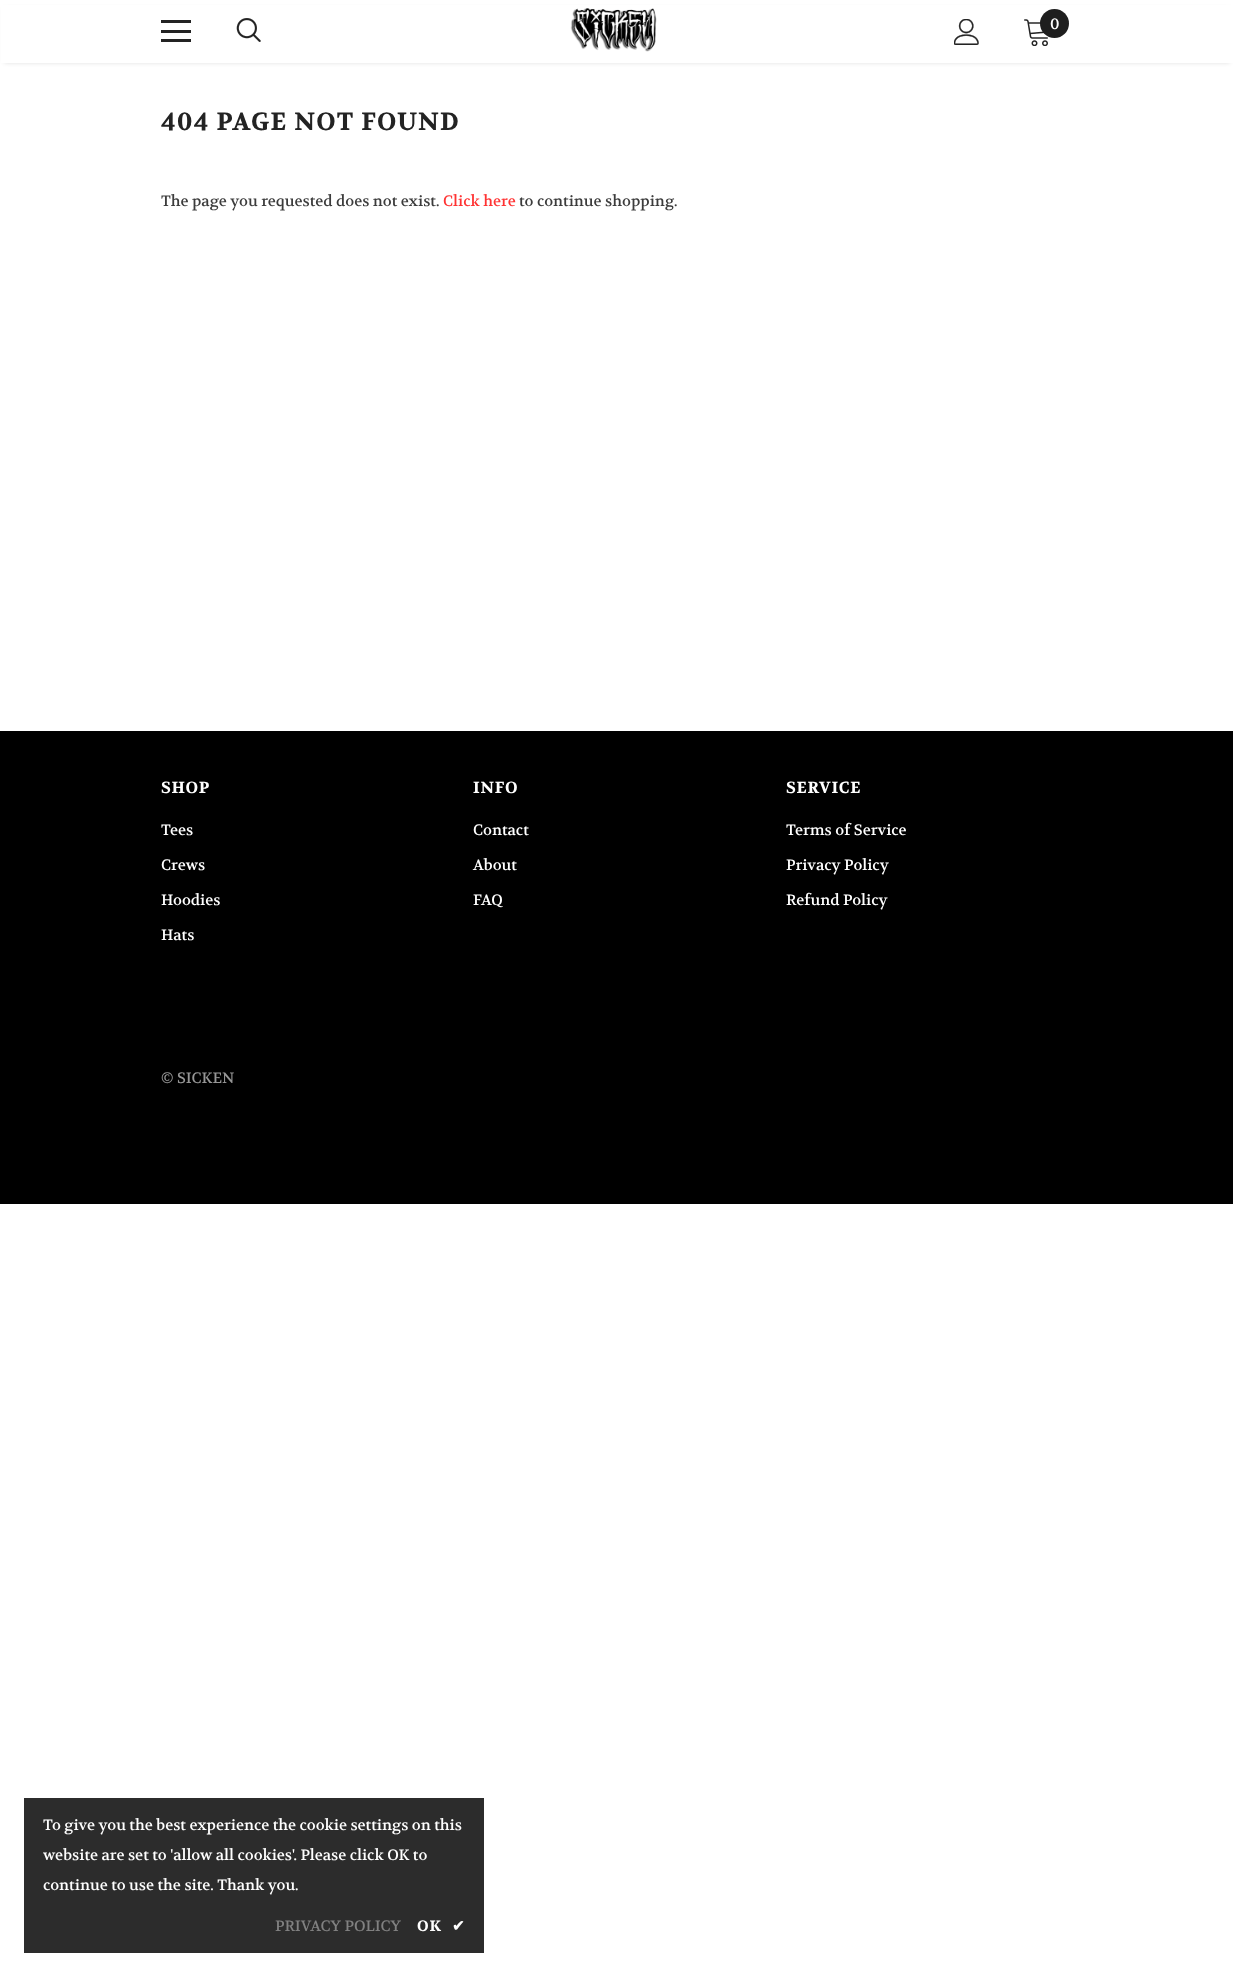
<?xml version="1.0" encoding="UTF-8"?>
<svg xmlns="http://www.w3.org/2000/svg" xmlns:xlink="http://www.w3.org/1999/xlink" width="1233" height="1976">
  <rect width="100%" height="100%" fill="#ffffff" />
  <rect x="4" y="8" width="1226" height="55" fill="#000000" fill-opacity="0.12" filter="blur(2px)" />
  <rect x="1" y="5" width="1232" height="58" fill="#ffffff" />
  <rect x="161" y="20" width="30" height="3" fill="#232323" />
  <rect x="161" y="30" width="30" height="3" fill="#232323" />
  <rect x="161" y="39" width="30" height="3" fill="#232323" />
  <image x="236" y="18" width="25" height="24" xlink:href="image1.png" />
  <image x="570" y="8" width="87" height="44" xlink:href="image2.png" />
  <image x="954" y="19" width="25" height="26" xlink:href="image3.png" />
  <image x="1024" y="19" width="24" height="27" xlink:href="image4.png" />
  <circle cx="1054.5" cy="23.5" r="14.5" fill="#1e1e1e" />
  <rect y="731" width="1233" height="473" fill="#000000" />
  <rect x="24" y="1798" width="460" height="155" fill="#2c2c2c" />
  <text x="1050" y="29" style="font-family: Volkhov; font-size: 15px; fill: #ffffff">0</text>
  <text x="161" y="130" style="font-family: Volkhov; font-size: 25px; font-weight: bold; letter-spacing: 1.25px; fill: #232323">404 PAGE NOT FOUND</text>
  <text x="161" y="206" style="font-family: Volkhov; font-size: 15px; fill: #3c3c3c">The page you requested does not exist.</text>
  <text x="443" y="206" style="font-family: Volkhov; font-size: 15px; fill: #ff3333">Click here</text>
  <text x="519" y="206" style="font-family: Volkhov; font-size: 15px; fill: #3c3c3c">to continue shopping.</text>
  <text x="161" y="793" style="font-family: Volkhov; font-size: 16.25px; font-weight: bold; letter-spacing: 0.75px; fill: #ffffff">SHOP</text>
  <text x="161" y="835" style="font-family: Volkhov; font-size: 15px; fill: #ffffff">Tees</text>
  <text x="161" y="870" style="font-family: Volkhov; font-size: 15px; fill: #ffffff">Crews</text>
  <text x="161" y="905" style="font-family: Volkhov; font-size: 15px; fill: #ffffff">Hoodies</text>
  <text x="161" y="940" style="font-family: Volkhov; font-size: 15px; fill: #ffffff">Hats</text>
  <text x="473" y="793" style="font-family: Volkhov; font-size: 16.25px; font-weight: bold; letter-spacing: 0.75px; fill: #ffffff">INFO</text>
  <text x="473" y="835" style="font-family: Volkhov; font-size: 15px; fill: #ffffff">Contact</text>
  <text x="473" y="870" style="font-family: Volkhov; font-size: 15px; fill: #ffffff">About</text>
  <text x="473" y="905" style="font-family: Volkhov; font-size: 15px; fill: #ffffff">FAQ</text>
  <text x="786" y="793" style="font-family: Volkhov; font-size: 16.25px; font-weight: bold; letter-spacing: 0.75px; fill: #ffffff">SERVICE</text>
  <text x="786" y="835" style="font-family: Volkhov; font-size: 15px; fill: #ffffff">Terms of Service</text>
  <text x="786" y="870" style="font-family: Volkhov; font-size: 15px; fill: #ffffff">Privacy Policy</text>
  <text x="786" y="905" style="font-family: Volkhov; font-size: 15px; fill: #ffffff">Refund Policy</text>
  <text x="161" y="1083" style="font-family: Volkhov; font-size: 15px; fill: #969696">© SICKEN</text>
  <text x="43" y="1830" style="font-family: Volkhov; font-size: 15px; fill: #ffffff">To give you the best experience the cookie settings on this</text>
  <text x="43" y="1860" style="font-family: Volkhov; font-size: 15px; fill: #ffffff">website are set to 'allow all cookies'. Please click OK to</text>
  <text x="43" y="1890" style="font-family: Volkhov; font-size: 15px; fill: #ffffff">continue to use the site. Thank you.</text>
  <text x="275" y="1931" style="font-family: Volkhov; font-size: 15px; fill: #818181">PRIVACY POLICY</text>
  <text x="417" y="1931" style="font-family: Volkhov; font-size: 15px; font-weight: bold; letter-spacing: 1px; fill: #ffffff">OK</text>
  <text x="452" y="1931" style="font-family: DejaVu Sans; font-size: 15px; font-weight: bold; letter-spacing: 1px; fill: #ffffff">✔</text>
</svg>
